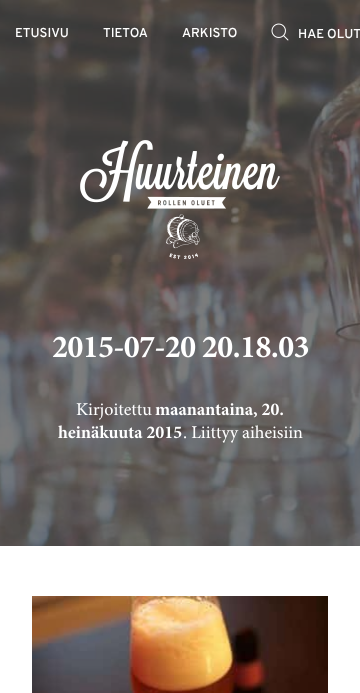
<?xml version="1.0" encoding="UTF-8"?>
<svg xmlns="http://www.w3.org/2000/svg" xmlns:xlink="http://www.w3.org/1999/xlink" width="360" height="693">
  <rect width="100%" height="100%" fill="#ffffff" />
  <image x="0" y="0" width="360" height="546" xlink:href="image2.png" />
  <image x="271" y="23" width="18" height="18" xlink:href="image1.png" />
  <image x="80" y="140" width="200" height="119" xlink:href="image3.png" />
  <image x="53" y="336" width="256" height="22" xlink:href="image4.png" />
  <image x="155" y="403" width="128" height="15" xlink:href="image5.png" />
  <image x="58" y="425" width="124" height="14" xlink:href="image6.png" />
  <image x="32" y="596" width="296" height="97" xlink:href="image7.png" />
  <text x="15" y="37" style="font-family: Overpass; font-size: 13px; fill: #ffffff">ETUSIVU</text>
  <text x="103" y="37" style="font-family: Overpass; font-size: 13px; fill: #ffffff">TIETOA</text>
  <text x="182" y="37" style="font-family: Overpass; font-size: 13px; fill: #ffffff">ARKISTO</text>
  <text x="298" y="38" style="font-family: Overpass; font-size: 13px; fill: #ffffff">HAE OLUT</text>
  <text x="76" y="415" style="font-family: Minion; font-size: 18px; fill: #ffffff">Kirjoitettu</text>
  <text x="183" y="438" style="font-family: Minion; font-size: 18px; fill: #ffffff">. Liittyy aiheisiin</text>
</svg>
